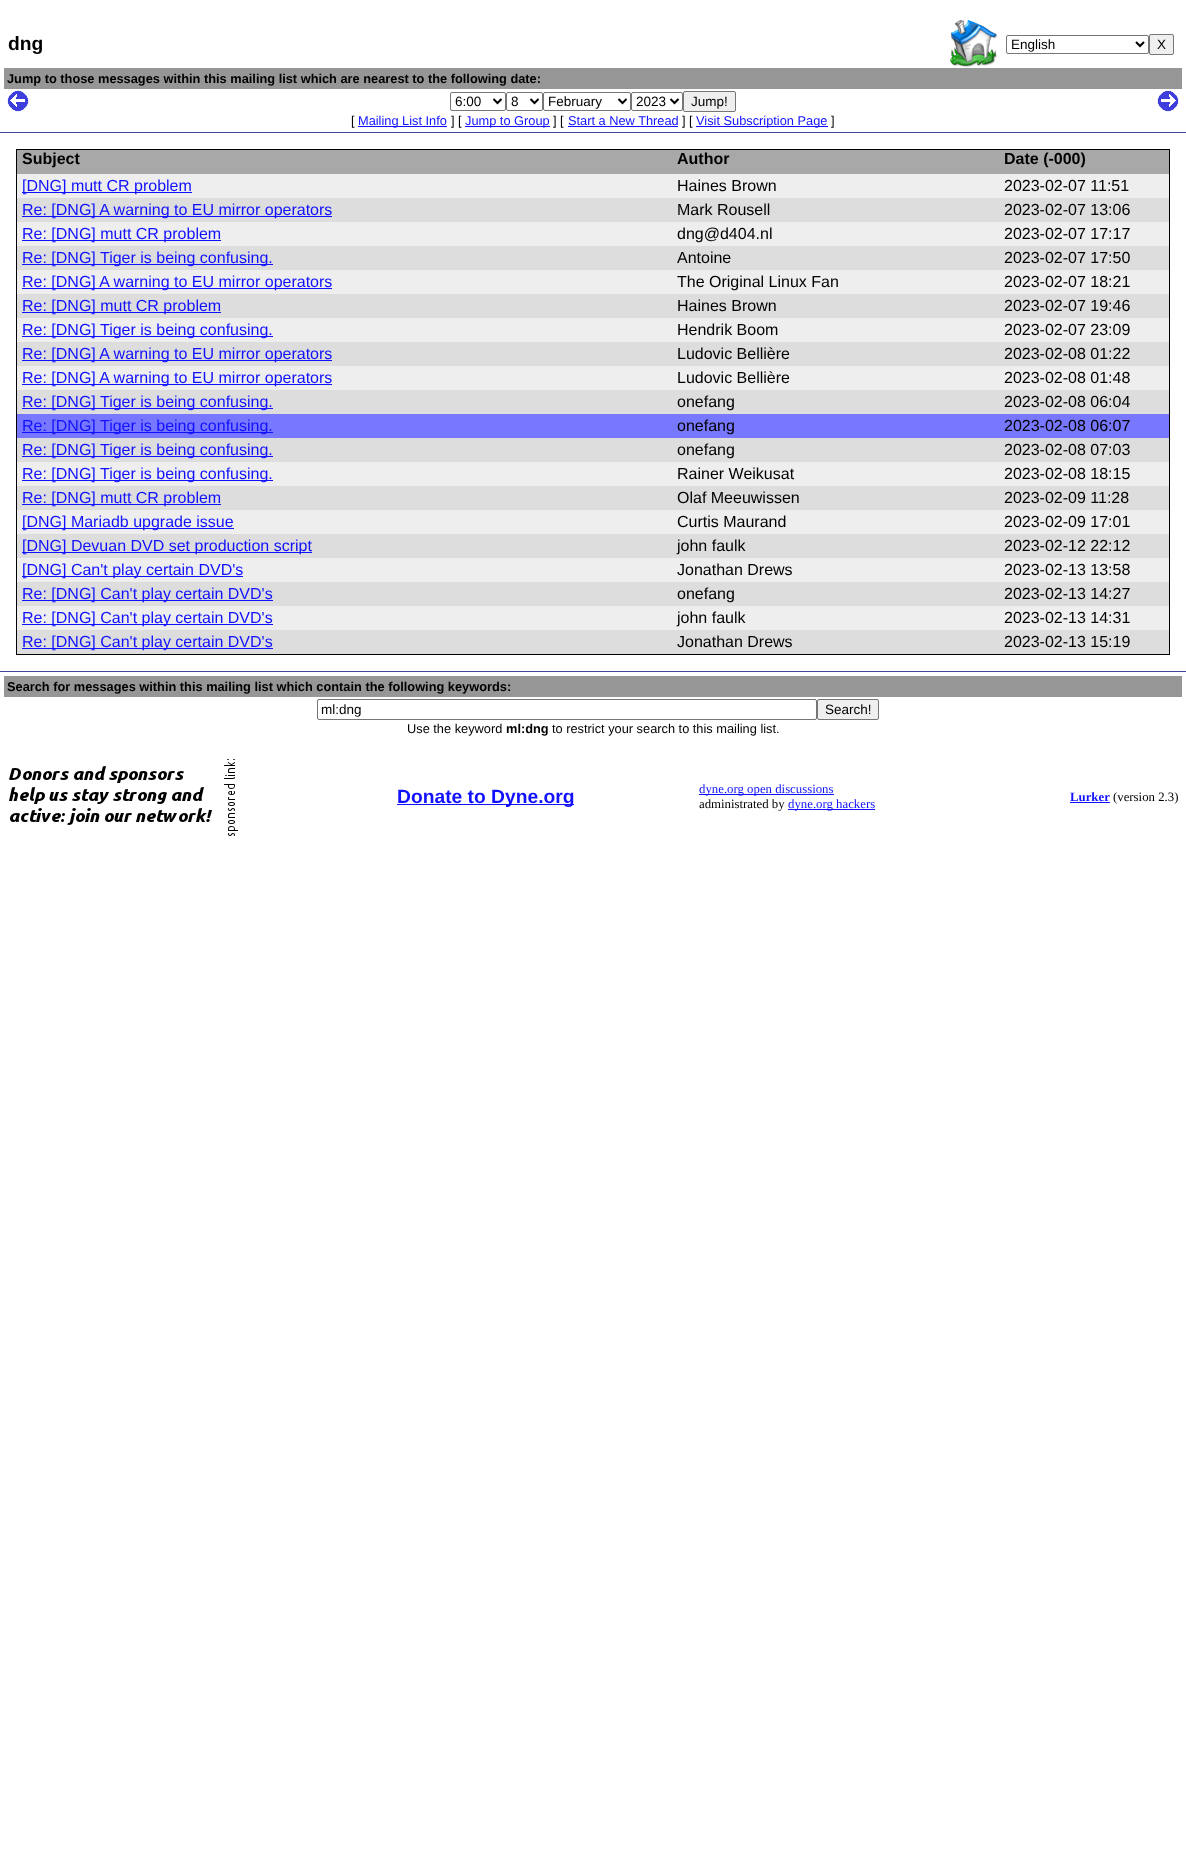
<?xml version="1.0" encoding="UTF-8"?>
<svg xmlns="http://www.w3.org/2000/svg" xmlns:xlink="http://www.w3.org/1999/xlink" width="1186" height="1859">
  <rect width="100%" height="100%" fill="#ffffff" />
  <rect y="132" width="1186" height="1" fill="#434399" />
  <image x="950" y="20" width="48" height="48" xlink:href="image1.png" />
  <rect x="1006.5" y="35.5" width="142" height="18" rx="1.5" fill="none" stroke="#767676" />
  <path d="M 1136 42 l 4 4 l 4 -4" fill="none" stroke="#000000" stroke-width="2" />
  <rect x="1149.5" y="34.5" width="24" height="20" rx="1.5" fill="#efefef" stroke="#767676" />
  <rect x="4" y="68" width="1178" height="21" fill="#969696" />
  <image x="7" y="90" width="22" height="22" xlink:href="image2.png" />
  <rect x="450.5" y="92.5" width="55" height="18" rx="1.5" fill="none" stroke="#767676" />
  <path d="M 493.5 99 l 4 4 l 4 -4" fill="none" stroke="#000000" stroke-width="2" />
  <rect x="506.5" y="92.5" width="36" height="18" rx="1.5" fill="none" stroke="#767676" />
  <path d="M 530.5 99 l 4 4 l 4 -4" fill="none" stroke="#000000" stroke-width="2" />
  <rect x="543.5" y="92.5" width="87" height="18" rx="1.5" fill="none" stroke="#767676" />
  <path d="M 618.5 99 l 4 4 l 4 -4" fill="none" stroke="#000000" stroke-width="2" />
  <rect x="631.5" y="92.5" width="51" height="18" rx="1.5" fill="none" stroke="#767676" />
  <path d="M 670.5 99 l 4 4 l 4 -4" fill="none" stroke="#000000" stroke-width="2" />
  <rect x="683.5" y="91.5" width="52" height="20" rx="1.5" fill="#efefef" stroke="#767676" />
  <image x="1157" y="90" width="22" height="22" xlink:href="image3.png" />
  <rect x="358" y="126" width="89" height="1" fill="#1111ff" />
  <rect x="465" y="126" width="85" height="1" fill="#1111ff" />
  <rect x="568" y="126" width="110" height="1" fill="#1111ff" />
  <rect x="696" y="126" width="132" height="1" fill="#1111ff" />
  <rect x="16.5" y="149.5" width="1153" height="505" fill="none" stroke="#000000" />
  <rect x="17" y="150" width="1152" height="24" fill="#a8a8a8" />
  <rect x="17" y="174" width="1152" height="24" fill="#eeeeee" />
  <rect x="22" y="192" width="170" height="1" fill="#1111ff" />
  <rect x="17" y="198" width="1152" height="24" fill="#dddddd" />
  <rect x="22" y="216" width="310" height="1" fill="#1111ff" />
  <rect x="17" y="222" width="1152" height="24" fill="#eeeeee" />
  <rect x="22" y="240" width="199" height="1" fill="#1111ff" />
  <rect x="17" y="246" width="1152" height="24" fill="#dddddd" />
  <rect x="22" y="264" width="251" height="1" fill="#1111ff" />
  <rect x="17" y="270" width="1152" height="24" fill="#eeeeee" />
  <rect x="22" y="288" width="310" height="1" fill="#1111ff" />
  <rect x="17" y="294" width="1152" height="24" fill="#dddddd" />
  <rect x="22" y="312" width="199" height="1" fill="#1111ff" />
  <rect x="17" y="318" width="1152" height="24" fill="#eeeeee" />
  <rect x="22" y="336" width="251" height="1" fill="#1111ff" />
  <rect x="17" y="342" width="1152" height="24" fill="#dddddd" />
  <rect x="22" y="360" width="310" height="1" fill="#1111ff" />
  <rect x="17" y="366" width="1152" height="24" fill="#eeeeee" />
  <rect x="22" y="384" width="310" height="1" fill="#1111ff" />
  <rect x="17" y="390" width="1152" height="24" fill="#dddddd" />
  <rect x="22" y="408" width="251" height="1" fill="#1111ff" />
  <rect x="17" y="414" width="1152" height="24" fill="#7777ff" />
  <rect x="22" y="432" width="251" height="1" fill="#1111ff" />
  <rect x="17" y="438" width="1152" height="24" fill="#dddddd" />
  <rect x="22" y="456" width="251" height="1" fill="#1111ff" />
  <rect x="17" y="462" width="1152" height="24" fill="#eeeeee" />
  <rect x="22" y="480" width="251" height="1" fill="#1111ff" />
  <rect x="17" y="486" width="1152" height="24" fill="#dddddd" />
  <rect x="22" y="504" width="199" height="1" fill="#1111ff" />
  <rect x="17" y="510" width="1152" height="24" fill="#eeeeee" />
  <rect x="22" y="528" width="212" height="1" fill="#1111ff" />
  <rect x="17" y="534" width="1152" height="24" fill="#dddddd" />
  <rect x="22" y="552" width="290" height="1" fill="#1111ff" />
  <rect x="17" y="558" width="1152" height="24" fill="#eeeeee" />
  <rect x="22" y="576" width="221" height="1" fill="#1111ff" />
  <rect x="17" y="582" width="1152" height="24" fill="#dddddd" />
  <rect x="22" y="600" width="251" height="1" fill="#1111ff" />
  <rect x="17" y="606" width="1152" height="24" fill="#eeeeee" />
  <rect x="22" y="624" width="251" height="1" fill="#1111ff" />
  <rect x="17" y="630" width="1152" height="24" fill="#dddddd" />
  <rect x="22" y="648" width="251" height="1" fill="#1111ff" />
  <rect y="671" width="1186" height="1" fill="#434399" />
  <rect x="4" y="676" width="1178" height="21" fill="#969696" />
  <rect x="317.5" y="699.5" width="499" height="20" rx="1.5" fill="none" stroke="#767676" />
  <rect x="817.5" y="699.5" width="61" height="20" rx="1.5" fill="#efefef" stroke="#767676" />
  <image x="9" y="759" width="229" height="77" xlink:href="image4.png" />
  <rect x="397" y="804" width="177" height="1" fill="#1111ff" />
  <rect x="699" y="794" width="135" height="1" fill="#1111ff" />
  <rect x="788" y="809" width="87" height="1" fill="#1111ff" />
  <rect x="1070" y="802" width="40" height="1" fill="#1111ff" />
  <text x="8" y="50" style="font-family: Liberation Sans; font-size: 19.25px; font-weight: bold; fill: #000000">dng</text>
  <text x="1011" y="49" style="font-family: Liberation Sans; font-size: 13.5px; fill: #000000">English</text>
  <text x="1157" y="49" style="font-family: Liberation Sans; font-size: 13.5px; fill: #000000">X</text>
  <text x="7" y="83" style="font-family: Liberation Sans; font-size: 12.8px; font-weight: bold; fill: #000000">Jump to those messages within this mailing list which are nearest to the following date:</text>
  <text x="455" y="106" style="font-family: Liberation Sans; font-size: 13.5px; fill: #000000">6:00</text>
  <text x="511" y="106" style="font-family: Liberation Sans; font-size: 13.5px; fill: #000000">8</text>
  <text x="548" y="106" style="font-family: Liberation Sans; font-size: 13.5px; fill: #000000">February</text>
  <text x="636" y="106" style="font-family: Liberation Sans; font-size: 13.5px; fill: #000000">2023</text>
  <text x="691" y="106" style="font-family: Liberation Sans; font-size: 13.5px; fill: #000000">Jump!</text>
  <text x="351" y="125" style="font-family: Liberation Sans; font-size: 12.8px; fill: #000000">[</text>
  <text x="358" y="125" style="font-family: Liberation Sans; font-size: 12.8px; fill: #1111ff">Mailing List Info</text>
  <text x="451" y="125" style="font-family: Liberation Sans; font-size: 12.8px; fill: #000000">] [</text>
  <text x="465" y="125" style="font-family: Liberation Sans; font-size: 12.8px; fill: #1111ff">Jump to Group</text>
  <text x="553" y="125" style="font-family: Liberation Sans; font-size: 12.8px; fill: #000000">] [</text>
  <text x="568" y="125" style="font-family: Liberation Sans; font-size: 12.8px; fill: #1111ff">Start a New Thread</text>
  <text x="682" y="125" style="font-family: Liberation Sans; font-size: 12.8px; fill: #000000">] [</text>
  <text x="696" y="125" style="font-family: Liberation Sans; font-size: 12.8px; fill: #1111ff">Visit Subscription Page</text>
  <text x="831" y="125" style="font-family: Liberation Sans; font-size: 12.8px; fill: #000000">]</text>
  <text x="22" y="164" style="font-family: Liberation Sans; font-size: 16px; font-weight: bold; fill: #000000">Subject</text>
  <text x="677" y="164" style="font-family: Liberation Sans; font-size: 16px; font-weight: bold; fill: #000000">Author</text>
  <text x="1004" y="164" style="font-family: Liberation Sans; font-size: 16px; font-weight: bold; fill: #000000">Date (-000)</text>
  <text x="22" y="191" style="font-family: Liberation Sans; font-size: 16px; fill: #1111ff">[DNG] mutt CR problem</text>
  <text x="677" y="191" style="font-family: Liberation Sans; font-size: 16px; fill: #000000">Haines Brown</text>
  <text x="1004" y="191" style="font-family: Liberation Sans; font-size: 16px; fill: #000000">2023-02-07 11:51</text>
  <text x="22" y="215" style="font-family: Liberation Sans; font-size: 16px; fill: #1111ff">Re: [DNG] A warning to EU mirror operators</text>
  <text x="677" y="215" style="font-family: Liberation Sans; font-size: 16px; fill: #000000">Mark Rousell</text>
  <text x="1004" y="215" style="font-family: Liberation Sans; font-size: 16px; fill: #000000">2023-02-07 13:06</text>
  <text x="22" y="239" style="font-family: Liberation Sans; font-size: 16px; fill: #1111ff">Re: [DNG] mutt CR problem</text>
  <text x="677" y="239" style="font-family: Liberation Sans; font-size: 16px; fill: #000000">dng@d404.nl</text>
  <text x="1004" y="239" style="font-family: Liberation Sans; font-size: 16px; fill: #000000">2023-02-07 17:17</text>
  <text x="22" y="263" style="font-family: Liberation Sans; font-size: 16px; fill: #1111ff">Re: [DNG] Tiger is being confusing.</text>
  <text x="677" y="263" style="font-family: Liberation Sans; font-size: 16px; fill: #000000">Antoine</text>
  <text x="1004" y="263" style="font-family: Liberation Sans; font-size: 16px; fill: #000000">2023-02-07 17:50</text>
  <text x="22" y="287" style="font-family: Liberation Sans; font-size: 16px; fill: #1111ff">Re: [DNG] A warning to EU mirror operators</text>
  <text x="677" y="287" style="font-family: Liberation Sans; font-size: 16px; fill: #000000">The Original Linux Fan</text>
  <text x="1004" y="287" style="font-family: Liberation Sans; font-size: 16px; fill: #000000">2023-02-07 18:21</text>
  <text x="22" y="311" style="font-family: Liberation Sans; font-size: 16px; fill: #1111ff">Re: [DNG] mutt CR problem</text>
  <text x="677" y="311" style="font-family: Liberation Sans; font-size: 16px; fill: #000000">Haines Brown</text>
  <text x="1004" y="311" style="font-family: Liberation Sans; font-size: 16px; fill: #000000">2023-02-07 19:46</text>
  <text x="22" y="335" style="font-family: Liberation Sans; font-size: 16px; fill: #1111ff">Re: [DNG] Tiger is being confusing.</text>
  <text x="677" y="335" style="font-family: Liberation Sans; font-size: 16px; fill: #000000">Hendrik Boom</text>
  <text x="1004" y="335" style="font-family: Liberation Sans; font-size: 16px; fill: #000000">2023-02-07 23:09</text>
  <text x="22" y="359" style="font-family: Liberation Sans; font-size: 16px; fill: #1111ff">Re: [DNG] A warning to EU mirror operators</text>
  <text x="677" y="359" style="font-family: Liberation Sans; font-size: 16px; fill: #000000">Ludovic Bellière</text>
  <text x="1004" y="359" style="font-family: Liberation Sans; font-size: 16px; fill: #000000">2023-02-08 01:22</text>
  <text x="22" y="383" style="font-family: Liberation Sans; font-size: 16px; fill: #1111ff">Re: [DNG] A warning to EU mirror operators</text>
  <text x="677" y="383" style="font-family: Liberation Sans; font-size: 16px; fill: #000000">Ludovic Bellière</text>
  <text x="1004" y="383" style="font-family: Liberation Sans; font-size: 16px; fill: #000000">2023-02-08 01:48</text>
  <text x="22" y="407" style="font-family: Liberation Sans; font-size: 16px; fill: #1111ff">Re: [DNG] Tiger is being confusing.</text>
  <text x="677" y="407" style="font-family: Liberation Sans; font-size: 16px; fill: #000000">onefang</text>
  <text x="1004" y="407" style="font-family: Liberation Sans; font-size: 16px; fill: #000000">2023-02-08 06:04</text>
  <text x="22" y="431" style="font-family: Liberation Sans; font-size: 16px; fill: #1111ff">Re: [DNG] Tiger is being confusing.</text>
  <text x="677" y="431" style="font-family: Liberation Sans; font-size: 16px; fill: #000000">onefang</text>
  <text x="1004" y="431" style="font-family: Liberation Sans; font-size: 16px; fill: #000000">2023-02-08 06:07</text>
  <text x="22" y="455" style="font-family: Liberation Sans; font-size: 16px; fill: #1111ff">Re: [DNG] Tiger is being confusing.</text>
  <text x="677" y="455" style="font-family: Liberation Sans; font-size: 16px; fill: #000000">onefang</text>
  <text x="1004" y="455" style="font-family: Liberation Sans; font-size: 16px; fill: #000000">2023-02-08 07:03</text>
  <text x="22" y="479" style="font-family: Liberation Sans; font-size: 16px; fill: #1111ff">Re: [DNG] Tiger is being confusing.</text>
  <text x="677" y="479" style="font-family: Liberation Sans; font-size: 16px; fill: #000000">Rainer Weikusat</text>
  <text x="1004" y="479" style="font-family: Liberation Sans; font-size: 16px; fill: #000000">2023-02-08 18:15</text>
  <text x="22" y="503" style="font-family: Liberation Sans; font-size: 16px; fill: #1111ff">Re: [DNG] mutt CR problem</text>
  <text x="677" y="503" style="font-family: Liberation Sans; font-size: 16px; fill: #000000">Olaf Meeuwissen</text>
  <text x="1004" y="503" style="font-family: Liberation Sans; font-size: 16px; fill: #000000">2023-02-09 11:28</text>
  <text x="22" y="527" style="font-family: Liberation Sans; font-size: 16px; fill: #1111ff">[DNG] Mariadb upgrade issue</text>
  <text x="677" y="527" style="font-family: Liberation Sans; font-size: 16px; fill: #000000">Curtis Maurand</text>
  <text x="1004" y="527" style="font-family: Liberation Sans; font-size: 16px; fill: #000000">2023-02-09 17:01</text>
  <text x="22" y="551" style="font-family: Liberation Sans; font-size: 16px; fill: #1111ff">[DNG] Devuan DVD set production script</text>
  <text x="677" y="551" style="font-family: Liberation Sans; font-size: 16px; fill: #000000">john faulk</text>
  <text x="1004" y="551" style="font-family: Liberation Sans; font-size: 16px; fill: #000000">2023-02-12 22:12</text>
  <text x="22" y="575" style="font-family: Liberation Sans; font-size: 16px; fill: #1111ff">[DNG] Can't play certain DVD's</text>
  <text x="677" y="575" style="font-family: Liberation Sans; font-size: 16px; fill: #000000">Jonathan Drews</text>
  <text x="1004" y="575" style="font-family: Liberation Sans; font-size: 16px; fill: #000000">2023-02-13 13:58</text>
  <text x="22" y="599" style="font-family: Liberation Sans; font-size: 16px; fill: #1111ff">Re: [DNG] Can't play certain DVD's</text>
  <text x="677" y="599" style="font-family: Liberation Sans; font-size: 16px; fill: #000000">onefang</text>
  <text x="1004" y="599" style="font-family: Liberation Sans; font-size: 16px; fill: #000000">2023-02-13 14:27</text>
  <text x="22" y="623" style="font-family: Liberation Sans; font-size: 16px; fill: #1111ff">Re: [DNG] Can't play certain DVD's</text>
  <text x="677" y="623" style="font-family: Liberation Sans; font-size: 16px; fill: #000000">john faulk</text>
  <text x="1004" y="623" style="font-family: Liberation Sans; font-size: 16px; fill: #000000">2023-02-13 14:31</text>
  <text x="22" y="647" style="font-family: Liberation Sans; font-size: 16px; fill: #1111ff">Re: [DNG] Can't play certain DVD's</text>
  <text x="677" y="647" style="font-family: Liberation Sans; font-size: 16px; fill: #000000">Jonathan Drews</text>
  <text x="1004" y="647" style="font-family: Liberation Sans; font-size: 16px; fill: #000000">2023-02-13 15:19</text>
  <text x="7" y="691" style="font-family: Liberation Sans; font-size: 12.8px; font-weight: bold; fill: #000000">Search for messages within this mailing list which contain the following keywords:</text>
  <text x="321" y="714" style="font-family: Liberation Sans; font-size: 13.5px; fill: #000000">ml:dng</text>
  <text x="825" y="714" style="font-family: Liberation Sans; font-size: 13.5px; fill: #000000">Search!</text>
  <text x="407" y="733" style="font-family: Liberation Sans; font-size: 12.8px; fill: #000000">Use the keyword</text>
  <text x="506" y="733" style="font-family: Liberation Sans; font-size: 12.8px; font-weight: bold; fill: #000000">ml:dng</text>
  <text x="552" y="733" style="font-family: Liberation Sans; font-size: 12.8px; fill: #000000">to restrict your search to this mailing list.</text>
  <text x="397" y="803" style="font-family: Liberation Sans; font-size: 19.25px; font-weight: bold; fill: #1111ff">Donate to Dyne.org</text>
  <text x="699" y="793" style="font-family: Liberation Serif; font-size: 12.8px; fill: #1111ff">dyne.org open discussions</text>
  <text x="699" y="808" style="font-family: Liberation Serif; font-size: 12.8px; fill: #000000">administrated by</text>
  <text x="788" y="808" style="font-family: Liberation Serif; font-size: 12.8px; fill: #1111ff">dyne.org hackers</text>
  <text x="1070" y="801" style="font-family: Liberation Serif; font-size: 12.8px; font-weight: bold; fill: #1111ff">Lurker</text>
  <text x="1113" y="801" style="font-family: Liberation Serif; font-size: 12.8px; fill: #000000">(version 2.3)</text>
</svg>
